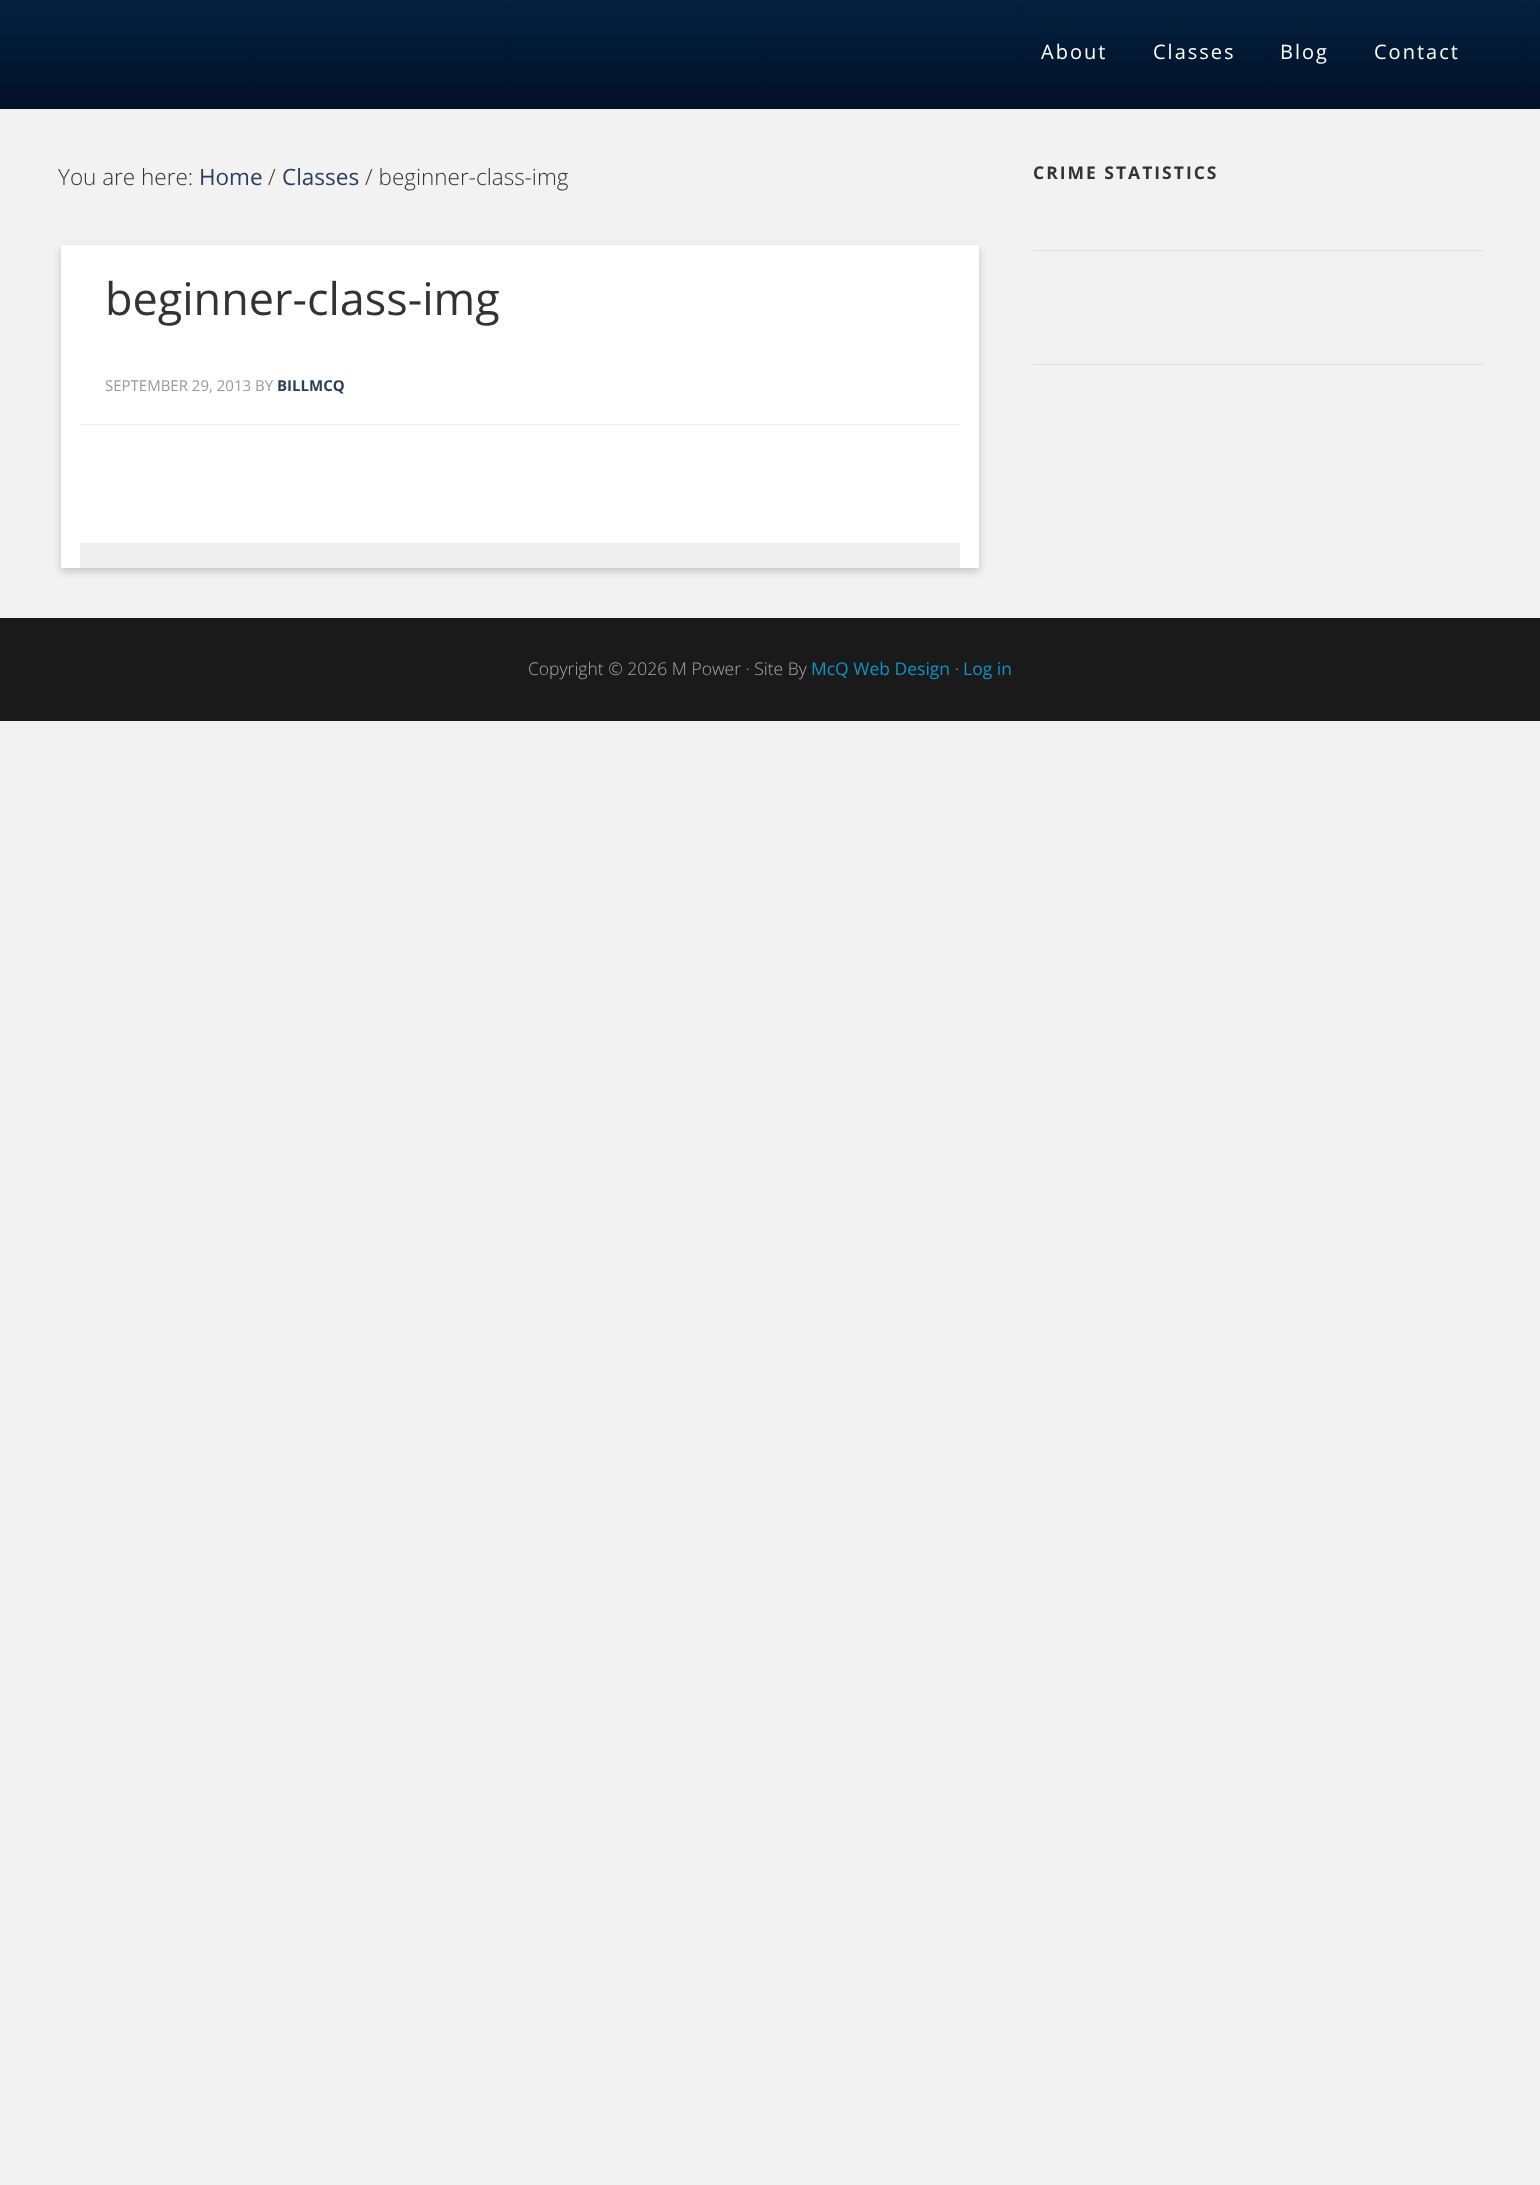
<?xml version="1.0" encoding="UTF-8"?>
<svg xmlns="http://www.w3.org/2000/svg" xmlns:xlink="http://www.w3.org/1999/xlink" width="1540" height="2185">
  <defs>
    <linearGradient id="g1" gradientUnits="userSpaceOnUse" x1="770" y1="0" x2="770" y2="109"><stop offset="0" stop-color="#03203f" /><stop offset="1" stop-color="#021128" /></linearGradient>
  </defs>
  <rect width="100%" height="100%" fill="#f2f2f2" />
  <rect width="1540" height="109" fill="url(#g1)" />
  <rect x="61" y="249" width="918" height="322" fill="#000000" fill-opacity="0.2" filter="blur(4px)" />
  <rect x="61" y="245" width="918" height="323" fill="#ffffff" />
  <rect x="80" y="424" width="880" height="1" fill="#eeeeee" />
  <rect x="80" y="543" width="880" height="25" fill="#eeeeee" />
  <rect x="1033" y="250" width="450" height="1" fill="#dddddd" />
  <rect x="1033" y="364" width="450" height="1" fill="#dddddd" />
  <rect y="618" width="1540" height="103" fill="#1a1a1a" />
  <text x="1041" y="59" style="font-family: Open Sans; font-size: 20px; letter-spacing: 2px; fill: #ffffff">About</text>
  <text x="1153" y="59" style="font-family: Open Sans; font-size: 20px; letter-spacing: 2px; fill: #ffffff">Classes</text>
  <text x="1280" y="59" style="font-family: Open Sans; font-size: 20px; letter-spacing: 2px; fill: #ffffff">Blog</text>
  <text x="1374" y="59" style="font-family: Open Sans; font-size: 20px; letter-spacing: 2px; fill: #ffffff">Contact</text>
  <text x="58" y="185" style="font-family: Open Sans; font-size: 22.5px; font-weight: 300; fill: #333333">You are here:</text>
  <text x="199" y="185" style="font-family: Open Sans; font-size: 22.5px; fill: #293f5e">Home</text>
  <text x="268" y="185" style="font-family: Open Sans; font-size: 22.5px; font-weight: 300; fill: #333333">/</text>
  <text x="282" y="185" style="font-family: Open Sans; font-size: 22.5px; fill: #293f5e">Classes</text>
  <text x="365" y="185" style="font-family: Open Sans; font-size: 22.5px; font-weight: 300; fill: #333333">/ beginner-class-img</text>
  <text x="105" y="315" style="font-family: Open Sans; font-size: 45px; fill: #333333">beginner-class-img</text>
  <text x="105" y="391" style="font-family: Open Sans; font-size: 15px; fill: #999999">SEPTEMBER 29, 2013 BY</text>
  <text x="277" y="391" style="font-family: Open Sans; font-size: 15px; font-weight: bold; fill: #293f5e">BILLMCQ</text>
  <text x="1033" y="179" style="font-family: Open Sans; font-size: 17.5px; font-weight: bold; letter-spacing: 2px; fill: #333333">CRIME STATISTICS</text>
  <text x="528" y="675" style="font-family: Open Sans; font-size: 17.5px; font-weight: 300; fill: #aaaaaa">Copyright © 2026 M Power · Site By</text>
  <text x="811" y="675" style="font-family: Open Sans; font-size: 17.5px; fill: #0e93c6">McQ Web Design</text>
  <text x="955" y="675" style="font-family: Open Sans; font-size: 17.5px; font-weight: 300; fill: #aaaaaa">·</text>
  <text x="963" y="675" style="font-family: Open Sans; font-size: 17.5px; fill: #0e93c6">Log in</text>
</svg>
